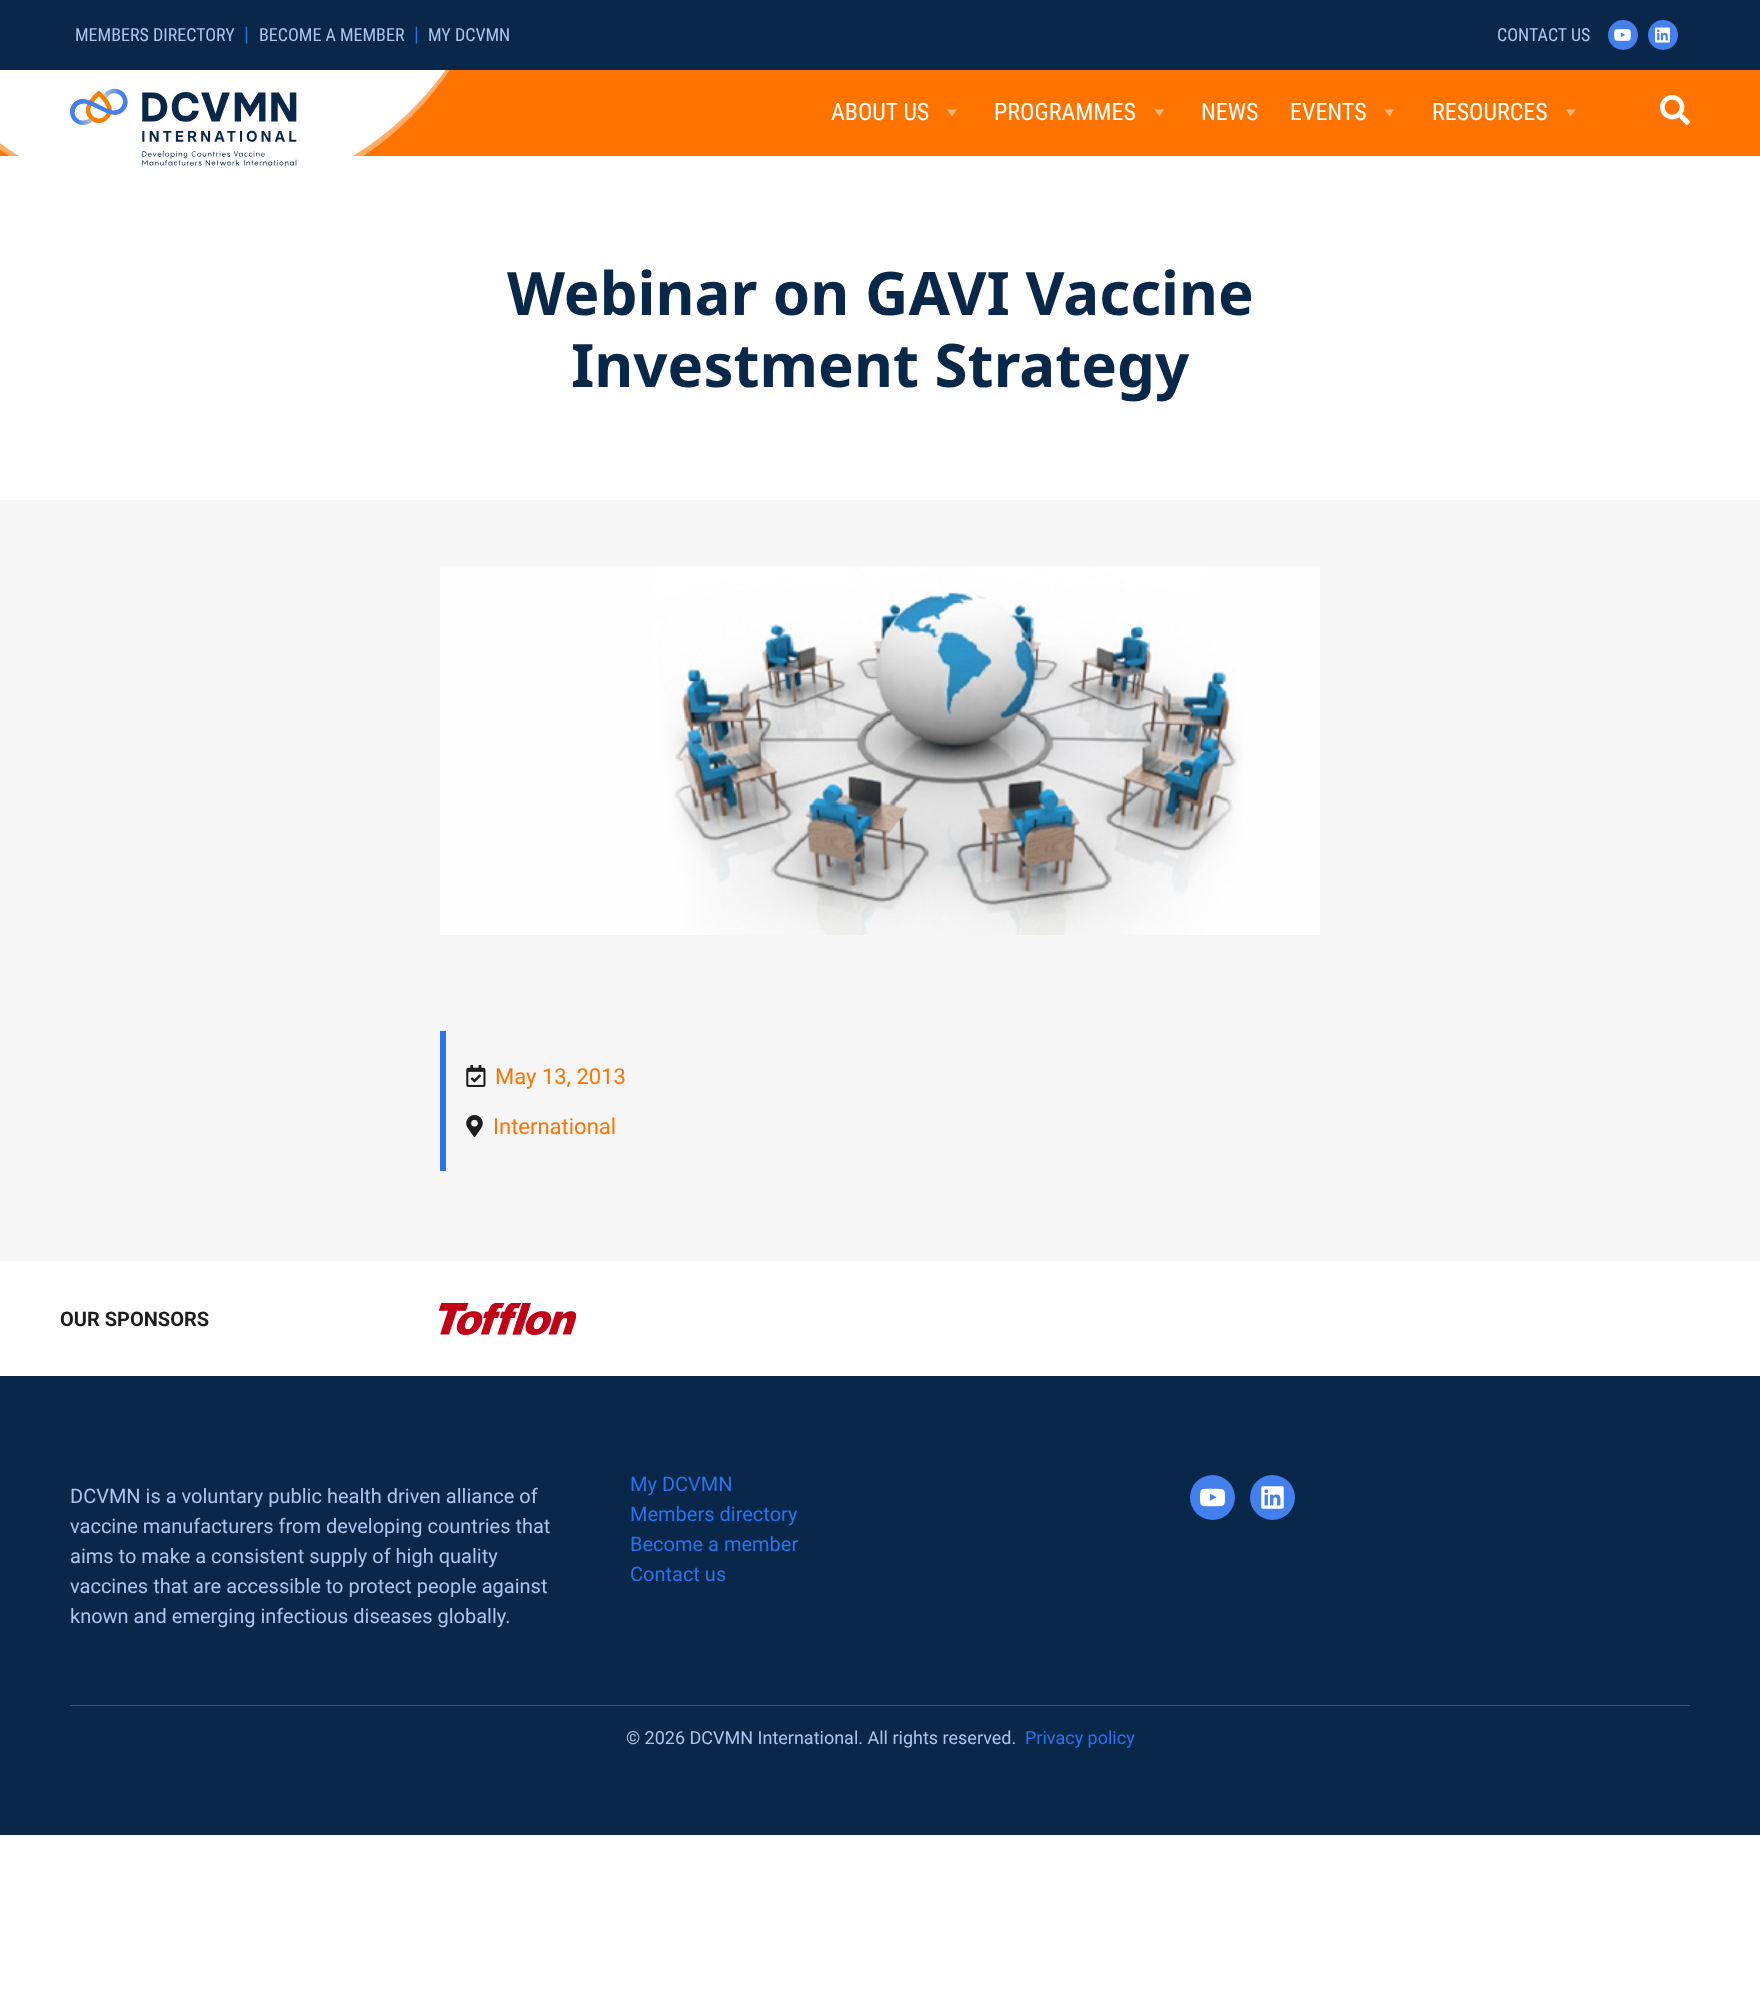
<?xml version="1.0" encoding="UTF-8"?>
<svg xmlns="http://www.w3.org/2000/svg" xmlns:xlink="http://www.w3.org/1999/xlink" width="1760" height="2000">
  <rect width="100%" height="100%" fill="#ffffff" />
  <rect y="70" width="1760" height="86" fill="#ff7300" />
  <path d="M 360 -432 c -68 -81 -174 -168 -174 -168 c 0 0 -105 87 -174 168 c -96 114 -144 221 -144 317 c 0 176 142 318 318 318 c 176 0 319 -142 319 -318 c 0 -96 -49 -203 -145 -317 z" fill="#ffffff" />
  <path d="M 360 -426 c -68 -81 -174 -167 -174 -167 c 0 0 -105 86 -174 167 c -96 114 -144 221 -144 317 c 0 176 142 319 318 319 c 176 0 319 -143 319 -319 c 0 -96 -49 -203 -145 -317 z" fill="#ffffff" fill-opacity="0.4" />
  <rect width="1760" height="70" fill="#082749" />
  <circle cx="1623" cy="35" r="15" fill="#437fed" />
  <image x="1614" y="29" width="17" height="12" xlink:href="image1.png" />
  <circle cx="1663" cy="35" r="15" fill="#437fed" />
  <image x="1655" y="27" width="15" height="16" xlink:href="image2.png" />
  <image x="70" y="88" width="227" height="78" xlink:href="image3.png" />
  <path d="M 957 109.5 l -5 7 l -5 -7 z" fill="#ffb980" />
  <path d="M 1164 109.5 l -4.5 7 l -5 -7 z" fill="#ffb980" />
  <path d="M 1394 109.5 l -4.5 7 l -5 -7 z" fill="#ffb980" />
  <path d="M 1575.5 109.5 l -5 7 l -4.5 -7 z" fill="#ffb980" />
  <image x="1660" y="95" width="30" height="30" xlink:href="image4.png" />
  <rect y="500" width="1760" height="761" fill="#f6f6f6" />
  <image x="440" y="566" width="880" height="369" xlink:href="image5.png" />
  <rect x="440" y="1031" width="6" height="140" fill="#2b72ed" />
  <image x="466" y="1065" width="20" height="22" xlink:href="image6.png" />
  <image x="466" y="1115" width="17" height="22" xlink:href="image7.png" />
  <image x="439" y="1303" width="137" height="32" xlink:href="image8.png" />
  <rect y="1376" width="1760" height="459" fill="#082749" />
  <circle cx="1212.5" cy="1497.5" r="22.5" fill="#437fed" />
  <image x="1200" y="1488" width="25" height="19" xlink:href="image9.png" />
  <circle cx="1272.5" cy="1497.5" r="22.5" fill="#437fed" />
  <image x="1261" y="1486" width="23" height="23" xlink:href="image10.png" />
  <rect x="70" y="1705" width="1620" height="1" fill="#3c506b" />
  <text x="75" y="41" style="font-family: Roboto Condensed; font-size: 18px; fill: #a7c7f1">MEMBERS DIRECTORY</text>
  <text x="244" y="41" style="font-family: Roboto Condensed; font-size: 20px; fill: #2b73ed">|</text>
  <text x="259" y="41" style="font-family: Roboto Condensed; font-size: 18px; fill: #a7c7f1">BECOME A MEMBER</text>
  <text x="414" y="41" style="font-family: Roboto Condensed; font-size: 20px; fill: #2b73ed">|</text>
  <text x="428" y="41" style="font-family: Roboto Condensed; font-size: 18px; fill: #a7c7f1">MY DCVMN</text>
  <text x="1497" y="41" style="font-family: Roboto Condensed; font-size: 18px; fill: #a7c7f1">CONTACT US</text>
  <text x="831" y="120" style="font-family: Roboto Condensed; font-size: 24px; fill: #ffffff">ABOUT US</text>
  <text x="994" y="120" style="font-family: Roboto Condensed; font-size: 24px; fill: #ffffff">PROGRAMMES</text>
  <text x="1201" y="120" style="font-family: Roboto Condensed; font-size: 24px; fill: #ffffff">NEWS</text>
  <text x="1290" y="120" style="font-family: Roboto Condensed; font-size: 24px; fill: #ffffff">EVENTS</text>
  <text x="1432" y="120" style="font-family: Roboto Condensed; font-size: 24px; fill: #ffffff">RESOURCES</text>
  <text x="507" y="315" style="font-family: Noto Sans; font-size: 60px; font-weight: bold; fill: #082749">Webinar on GAVI Vaccine</text>
  <text x="571" y="387" style="font-family: Noto Sans; font-size: 60px; font-weight: bold; fill: #082749">Investment Strategy</text>
  <text x="495" y="1084" style="font-family: Roboto; font-size: 22px; fill: #ff7300">May 13, 2013</text>
  <text x="493" y="1134" style="font-family: Roboto; font-size: 22px; fill: #ff7300">International</text>
  <text x="60" y="1326" style="font-family: Roboto; font-size: 20px; font-weight: bold; fill: #1d1d1d">OUR SPONSORS</text>
  <text x="70" y="1503" style="font-family: Roboto; font-size: 20px; fill: #a7c7f1">DCVMN is a voluntary public health driven alliance of</text>
  <text x="70" y="1533" style="font-family: Roboto; font-size: 20px; fill: #a7c7f1">vaccine manufacturers from developing countries that</text>
  <text x="70" y="1563" style="font-family: Roboto; font-size: 20px; fill: #a7c7f1">aims to make a consistent supply of high quality</text>
  <text x="70" y="1593" style="font-family: Roboto; font-size: 20px; fill: #a7c7f1">vaccines that are accessible to protect people against</text>
  <text x="70" y="1623" style="font-family: Roboto; font-size: 20px; fill: #a7c7f1">known and emerging infectious diseases globally.</text>
  <text x="630" y="1491" style="font-family: Roboto; font-size: 20px; fill: #2b73ed">My DCVMN</text>
  <text x="630" y="1521" style="font-family: Roboto; font-size: 20px; fill: #2b73ed">Members directory</text>
  <text x="630" y="1551" style="font-family: Roboto; font-size: 20px; fill: #2b73ed">Become a member</text>
  <text x="630" y="1581" style="font-family: Roboto; font-size: 20px; fill: #2b73ed">Contact us</text>
  <text x="626" y="1744" style="font-family: Roboto; font-size: 18px; fill: #a7c7f1">© 2026 DCVMN International. All rights reserved.</text>
  <text x="1025" y="1744" style="font-family: Roboto; font-size: 18px; fill: #2b73ed">Privacy policy</text>
</svg>
